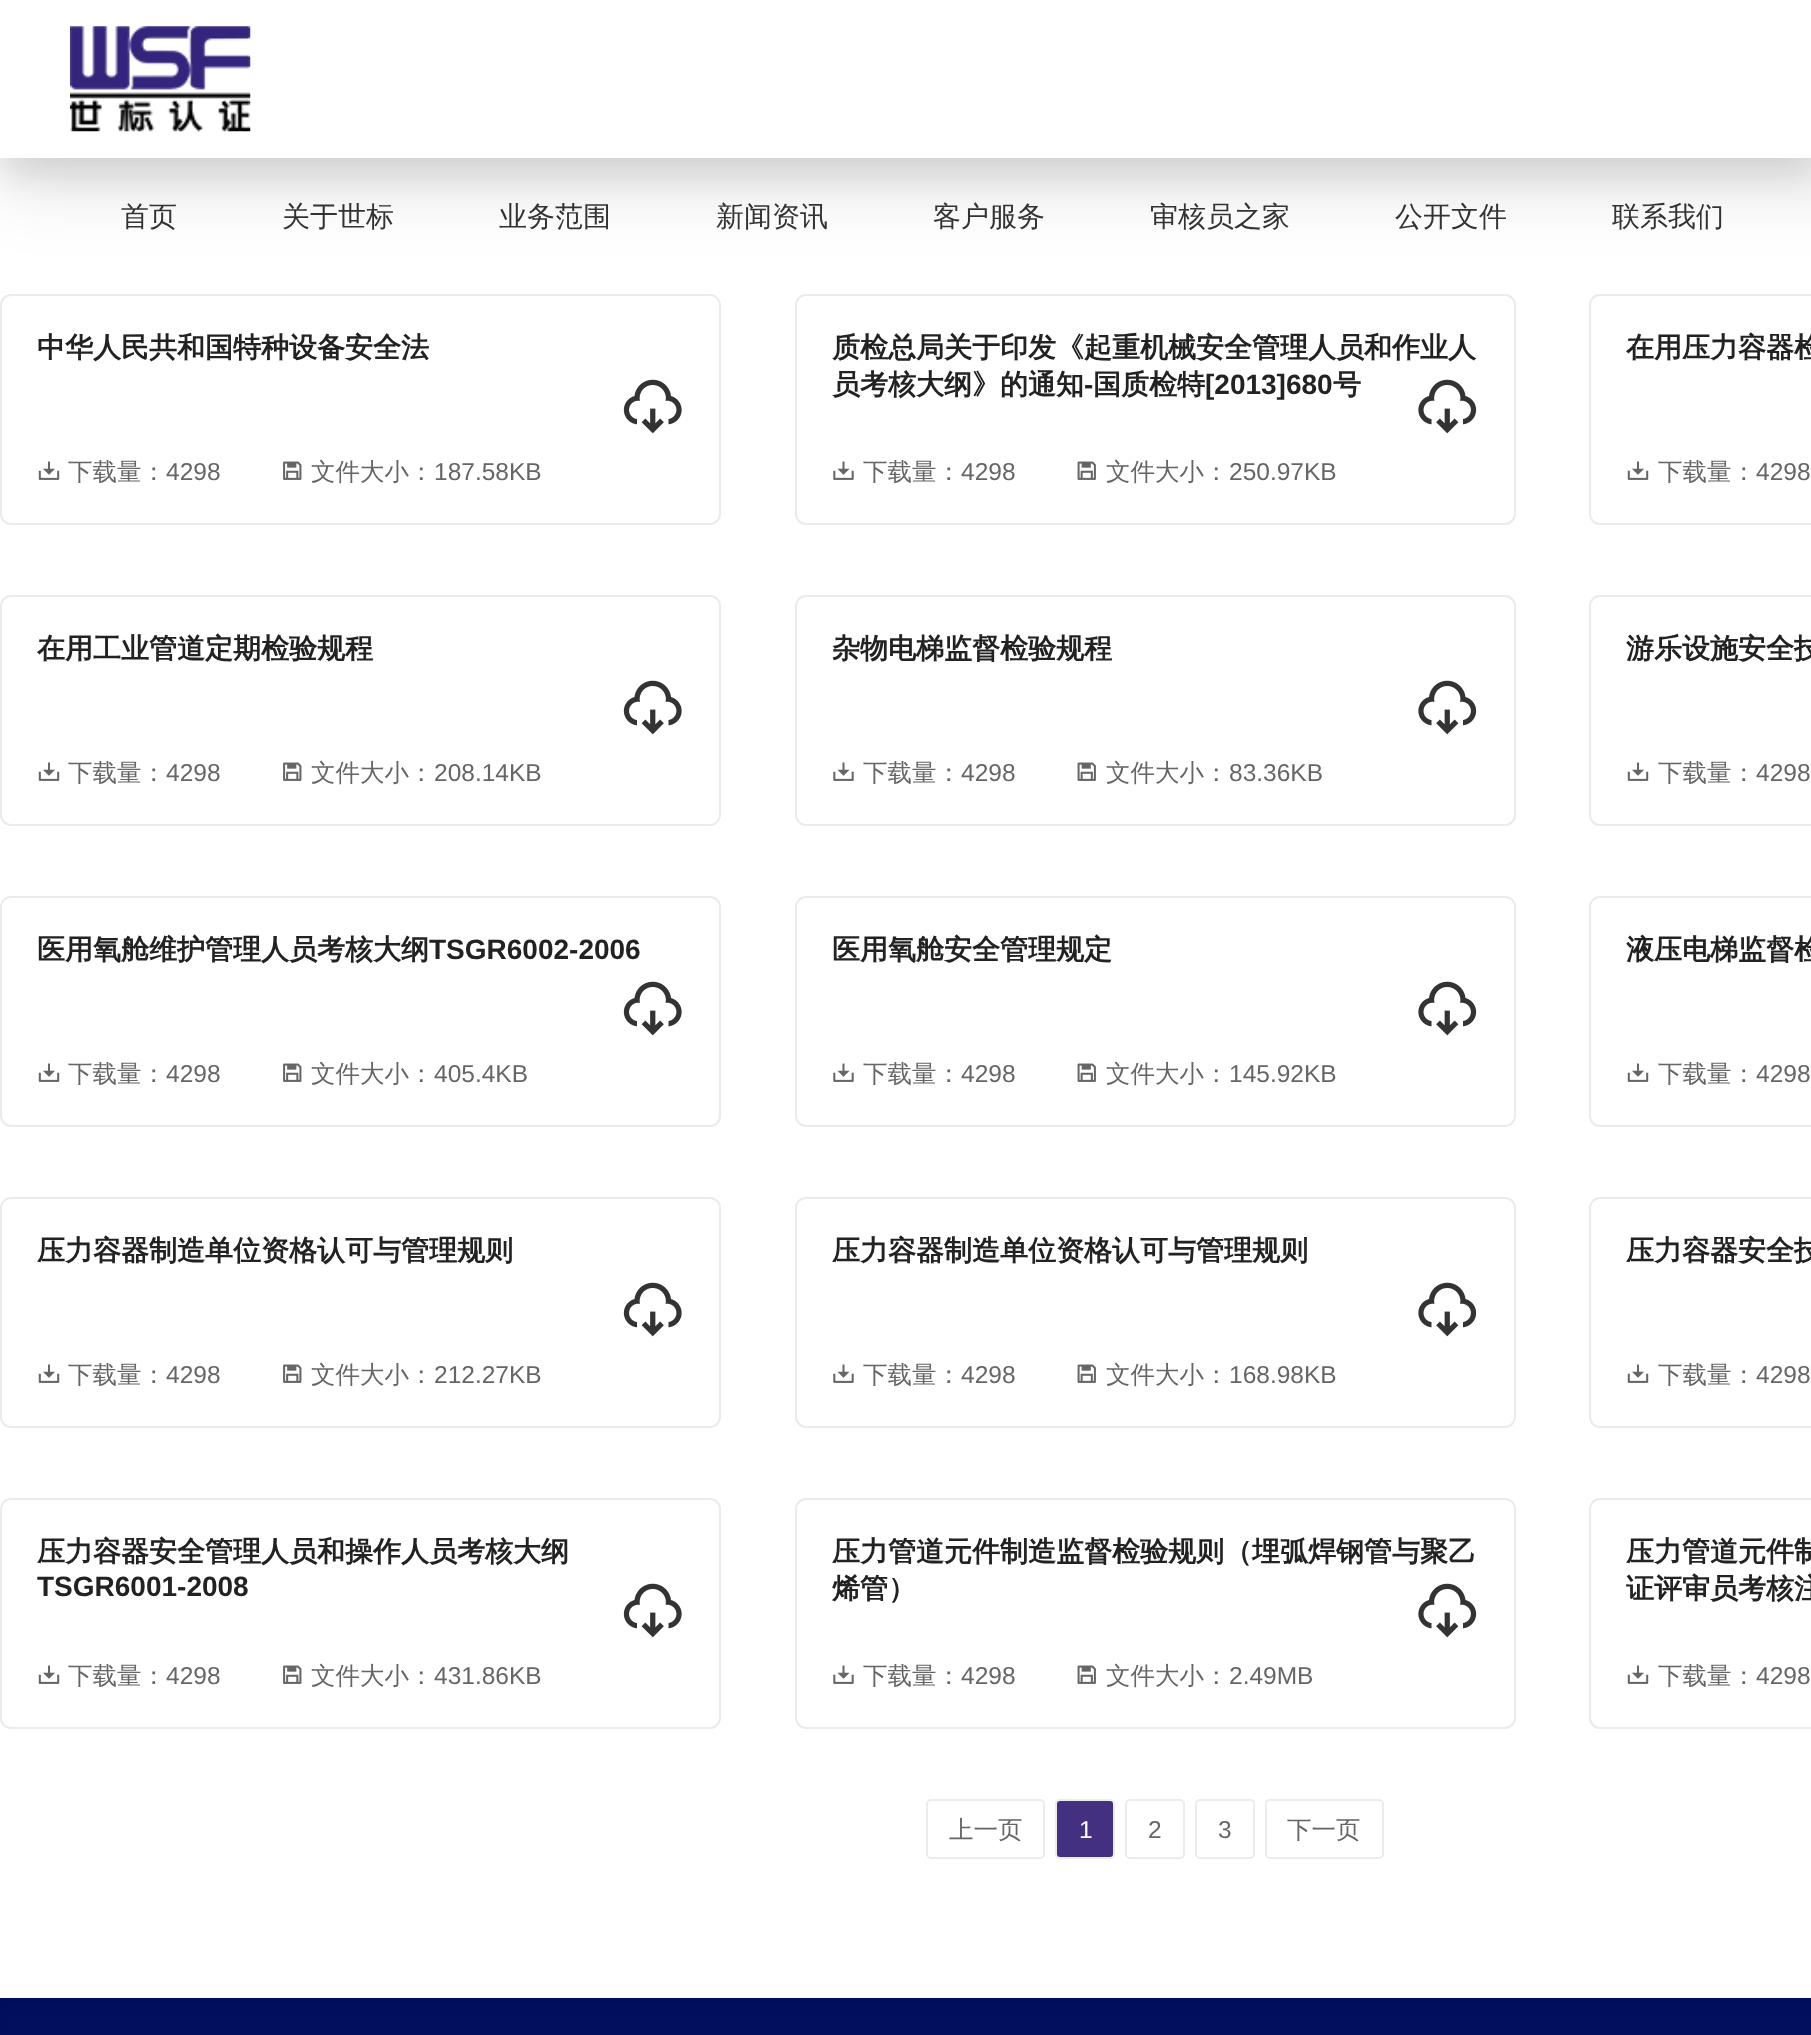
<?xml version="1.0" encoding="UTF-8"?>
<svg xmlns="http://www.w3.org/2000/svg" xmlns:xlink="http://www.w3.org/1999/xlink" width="1811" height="2035">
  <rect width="100%" height="100%" fill="#ffffff" />
  <rect x="1" y="295" width="719" height="229" rx="10" fill="none" stroke="#ebebeb" stroke-width="2" />
  <rect x="796" y="295" width="719" height="229" rx="10" fill="none" stroke="#ebebeb" stroke-width="2" />
  <rect x="1590" y="295" width="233" height="229" rx="10" fill="none" stroke="#ebebeb" stroke-width="2" />
  <rect y="32" width="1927" height="157" rx="11" fill="#000000" fill-opacity="0.1" filter="blur(35px)" />
  <rect y="18" width="1811" height="157" fill="#000000" fill-opacity="0.1" filter="blur(17.5px)" />
  <rect width="1811" height="158" fill="#ffffff" />
  <image x="70" y="26" width="181" height="106" xlink:href="image1.png" />
  <image x="623" y="379" width="59" height="55" xlink:href="image2.png" />
  <image x="38" y="461" width="22" height="19" xlink:href="image3.png" />
  <image x="283" y="461" width="19" height="19" xlink:href="image4.png" />
  <image x="1418" y="379" width="59" height="55" xlink:href="image5.png" />
  <image x="833" y="461" width="21" height="19" xlink:href="image6.png" />
  <image x="1077" y="461" width="19" height="19" xlink:href="image7.png" />
  <image x="1627" y="461" width="22" height="19" xlink:href="image3.png" />
  <rect x="1" y="596" width="719" height="229" rx="10" fill="none" stroke="#ebebeb" stroke-width="2" />
  <image x="623" y="680" width="59" height="55" xlink:href="image2.png" />
  <image x="38" y="762" width="22" height="19" xlink:href="image3.png" />
  <image x="283" y="762" width="19" height="19" xlink:href="image4.png" />
  <rect x="796" y="596" width="719" height="229" rx="10" fill="none" stroke="#ebebeb" stroke-width="2" />
  <image x="1418" y="680" width="59" height="55" xlink:href="image5.png" />
  <image x="833" y="762" width="21" height="19" xlink:href="image6.png" />
  <image x="1077" y="762" width="19" height="19" xlink:href="image7.png" />
  <rect x="1590" y="596" width="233" height="229" rx="10" fill="none" stroke="#ebebeb" stroke-width="2" />
  <image x="1627" y="762" width="22" height="19" xlink:href="image3.png" />
  <rect x="1" y="897" width="719" height="229" rx="10" fill="none" stroke="#ebebeb" stroke-width="2" />
  <image x="623" y="981" width="59" height="55" xlink:href="image2.png" />
  <image x="38" y="1063" width="22" height="19" xlink:href="image3.png" />
  <image x="283" y="1063" width="19" height="19" xlink:href="image4.png" />
  <rect x="796" y="897" width="719" height="229" rx="10" fill="none" stroke="#ebebeb" stroke-width="2" />
  <image x="1418" y="981" width="59" height="55" xlink:href="image5.png" />
  <image x="833" y="1063" width="21" height="19" xlink:href="image6.png" />
  <image x="1077" y="1063" width="19" height="19" xlink:href="image7.png" />
  <rect x="1590" y="897" width="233" height="229" rx="10" fill="none" stroke="#ebebeb" stroke-width="2" />
  <image x="1627" y="1063" width="22" height="19" xlink:href="image3.png" />
  <rect x="1" y="1198" width="719" height="229" rx="10" fill="none" stroke="#ebebeb" stroke-width="2" />
  <image x="623" y="1282" width="59" height="55" xlink:href="image2.png" />
  <image x="38" y="1364" width="22" height="19" xlink:href="image3.png" />
  <image x="283" y="1364" width="19" height="19" xlink:href="image4.png" />
  <rect x="796" y="1198" width="719" height="229" rx="10" fill="none" stroke="#ebebeb" stroke-width="2" />
  <image x="1418" y="1282" width="59" height="55" xlink:href="image5.png" />
  <image x="833" y="1364" width="21" height="19" xlink:href="image6.png" />
  <image x="1077" y="1364" width="19" height="19" xlink:href="image7.png" />
  <rect x="1590" y="1198" width="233" height="229" rx="10" fill="none" stroke="#ebebeb" stroke-width="2" />
  <image x="1627" y="1364" width="22" height="19" xlink:href="image3.png" />
  <rect x="1" y="1499" width="719" height="229" rx="10" fill="none" stroke="#ebebeb" stroke-width="2" />
  <image x="623" y="1583" width="59" height="55" xlink:href="image2.png" />
  <image x="38" y="1665" width="22" height="19" xlink:href="image3.png" />
  <image x="283" y="1665" width="19" height="19" xlink:href="image4.png" />
  <rect x="796" y="1499" width="719" height="229" rx="10" fill="none" stroke="#ebebeb" stroke-width="2" />
  <image x="1418" y="1583" width="59" height="55" xlink:href="image5.png" />
  <image x="833" y="1665" width="21" height="19" xlink:href="image6.png" />
  <image x="1077" y="1665" width="19" height="19" xlink:href="image7.png" />
  <rect x="1590" y="1499" width="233" height="229" rx="10" fill="none" stroke="#ebebeb" stroke-width="2" />
  <image x="1627" y="1665" width="22" height="19" xlink:href="image3.png" />
  <rect x="927" y="1800" width="117" height="58" rx="4" fill="none" stroke="#ececec" stroke-width="2" />
  <rect x="1056" y="1800" width="58" height="58" rx="4" fill="#433081" stroke="#ececec" stroke-width="2" />
  <rect x="1126" y="1800" width="58" height="58" rx="4" fill="none" stroke="#ececec" stroke-width="2" />
  <rect x="1196" y="1800" width="58" height="58" rx="4" fill="none" stroke="#ececec" stroke-width="2" />
  <rect x="1266" y="1800" width="117" height="58" rx="4" fill="none" stroke="#ececec" stroke-width="2" />
  <image x="0" y="1998" width="1811" height="37" xlink:href="image8.png" />
  <text x="121" y="226" style="font-family: WenQuanYi Zen Hei; font-size: 28px; font-weight: 500; fill: #333333">首页</text>
  <text x="282" y="226" style="font-family: WenQuanYi Zen Hei; font-size: 28px; font-weight: 500; fill: #333333">关于世标</text>
  <text x="499" y="226" style="font-family: WenQuanYi Zen Hei; font-size: 28px; font-weight: 500; fill: #333333">业务范围</text>
  <text x="716" y="226" style="font-family: WenQuanYi Zen Hei; font-size: 28px; font-weight: 500; fill: #333333">新闻资讯</text>
  <text x="933" y="226" style="font-family: WenQuanYi Zen Hei; font-size: 28px; font-weight: 500; fill: #333333">客户服务</text>
  <text x="1150" y="226" style="font-family: WenQuanYi Zen Hei; font-size: 28px; font-weight: 500; fill: #333333">审核员之家</text>
  <text x="1395" y="226" style="font-family: WenQuanYi Zen Hei; font-size: 28px; font-weight: 500; fill: #333333">公开文件</text>
  <text x="1612" y="226" style="font-family: WenQuanYi Zen Hei; font-size: 28px; font-weight: 500; fill: #333333">联系我们</text>
  <text x="37" y="357" style="font-family: WenQuanYi Zen Hei; font-size: 28px; font-weight: bold; fill: #222222">中华人民共和国特种设备安全法</text>
  <text x="68" y="480" style="font-family: WenQuanYi Zen Hei; font-size: 24.5px; font-weight: 500; fill: #666666">下载量：</text>
  <text x="166" y="480" style="font-family: Liberation Sans; font-size: 24.5px; fill: #666666">4298</text>
  <text x="311" y="480" style="font-family: WenQuanYi Zen Hei; font-size: 24.5px; font-weight: 500; fill: #666666">文件大小：</text>
  <text x="434" y="480" style="font-family: Liberation Sans; font-size: 24.5px; fill: #666666">187.58KB</text>
  <text x="832" y="357" style="font-family: WenQuanYi Zen Hei; font-size: 28px; font-weight: bold; fill: #222222">质检总局关于印发《起重机械安全管理人员和作业人</text>
  <text x="832" y="394" style="font-family: WenQuanYi Zen Hei; font-size: 28px; font-weight: bold; fill: #222222">员考核大纲》的通知</text>
  <text x="1084" y="394" style="font-family: Liberation Sans; font-size: 28px; font-weight: bold; fill: #222222">-</text>
  <text x="1093" y="394" style="font-family: WenQuanYi Zen Hei; font-size: 28px; font-weight: bold; fill: #222222">国质检特</text>
  <text x="1205" y="394" style="font-family: Liberation Sans; font-size: 28px; font-weight: bold; fill: #222222">[2013]680</text>
  <text x="1333" y="394" style="font-family: WenQuanYi Zen Hei; font-size: 28px; font-weight: bold; fill: #222222">号</text>
  <text x="863" y="480" style="font-family: WenQuanYi Zen Hei; font-size: 24.5px; font-weight: 500; fill: #666666">下载量：</text>
  <text x="961" y="480" style="font-family: Liberation Sans; font-size: 24.5px; fill: #666666">4298</text>
  <text x="1106" y="480" style="font-family: WenQuanYi Zen Hei; font-size: 24.5px; font-weight: 500; fill: #666666">文件大小：</text>
  <text x="1229" y="480" style="font-family: Liberation Sans; font-size: 24.5px; fill: #666666">250.97KB</text>
  <text x="1626" y="357" style="font-family: WenQuanYi Zen Hei; font-size: 28px; font-weight: bold; fill: #222222">在用压力容器检</text>
  <text x="1658" y="480" style="font-family: WenQuanYi Zen Hei; font-size: 24.5px; font-weight: 500; fill: #666666">下载量：</text>
  <text x="1756" y="480" style="font-family: Liberation Sans; font-size: 24.5px; fill: #666666">4298</text>
  <text x="37" y="658" style="font-family: WenQuanYi Zen Hei; font-size: 28px; font-weight: bold; fill: #222222">在用工业管道定期检验规程</text>
  <text x="68" y="781" style="font-family: WenQuanYi Zen Hei; font-size: 24.5px; font-weight: 500; fill: #666666">下载量：</text>
  <text x="166" y="781" style="font-family: Liberation Sans; font-size: 24.5px; fill: #666666">4298</text>
  <text x="311" y="781" style="font-family: WenQuanYi Zen Hei; font-size: 24.5px; font-weight: 500; fill: #666666">文件大小：</text>
  <text x="434" y="781" style="font-family: Liberation Sans; font-size: 24.5px; fill: #666666">208.14KB</text>
  <text x="832" y="658" style="font-family: WenQuanYi Zen Hei; font-size: 28px; font-weight: bold; fill: #222222">杂物电梯监督检验规程</text>
  <text x="863" y="781" style="font-family: WenQuanYi Zen Hei; font-size: 24.5px; font-weight: 500; fill: #666666">下载量：</text>
  <text x="961" y="781" style="font-family: Liberation Sans; font-size: 24.5px; fill: #666666">4298</text>
  <text x="1106" y="781" style="font-family: WenQuanYi Zen Hei; font-size: 24.5px; font-weight: 500; fill: #666666">文件大小：</text>
  <text x="1229" y="781" style="font-family: Liberation Sans; font-size: 24.5px; fill: #666666">83.36KB</text>
  <text x="1626" y="658" style="font-family: WenQuanYi Zen Hei; font-size: 28px; font-weight: bold; fill: #222222">游乐设施安全技</text>
  <text x="1658" y="781" style="font-family: WenQuanYi Zen Hei; font-size: 24.5px; font-weight: 500; fill: #666666">下载量：</text>
  <text x="1756" y="781" style="font-family: Liberation Sans; font-size: 24.5px; fill: #666666">4298</text>
  <text x="37" y="959" style="font-family: WenQuanYi Zen Hei; font-size: 28px; font-weight: bold; fill: #222222">医用氧舱维护管理人员考核大纲</text>
  <text x="429" y="959" style="font-family: Liberation Sans; font-size: 28px; font-weight: bold; fill: #222222">TSGR6002-2006</text>
  <text x="68" y="1082" style="font-family: WenQuanYi Zen Hei; font-size: 24.5px; font-weight: 500; fill: #666666">下载量：</text>
  <text x="166" y="1082" style="font-family: Liberation Sans; font-size: 24.5px; fill: #666666">4298</text>
  <text x="311" y="1082" style="font-family: WenQuanYi Zen Hei; font-size: 24.5px; font-weight: 500; fill: #666666">文件大小：</text>
  <text x="434" y="1082" style="font-family: Liberation Sans; font-size: 24.5px; fill: #666666">405.4KB</text>
  <text x="832" y="959" style="font-family: WenQuanYi Zen Hei; font-size: 28px; font-weight: bold; fill: #222222">医用氧舱安全管理规定</text>
  <text x="863" y="1082" style="font-family: WenQuanYi Zen Hei; font-size: 24.5px; font-weight: 500; fill: #666666">下载量：</text>
  <text x="961" y="1082" style="font-family: Liberation Sans; font-size: 24.5px; fill: #666666">4298</text>
  <text x="1106" y="1082" style="font-family: WenQuanYi Zen Hei; font-size: 24.5px; font-weight: 500; fill: #666666">文件大小：</text>
  <text x="1229" y="1082" style="font-family: Liberation Sans; font-size: 24.5px; fill: #666666">145.92KB</text>
  <text x="1626" y="959" style="font-family: WenQuanYi Zen Hei; font-size: 28px; font-weight: bold; fill: #222222">液压电梯监督检</text>
  <text x="1658" y="1082" style="font-family: WenQuanYi Zen Hei; font-size: 24.5px; font-weight: 500; fill: #666666">下载量：</text>
  <text x="1756" y="1082" style="font-family: Liberation Sans; font-size: 24.5px; fill: #666666">4298</text>
  <text x="37" y="1260" style="font-family: WenQuanYi Zen Hei; font-size: 28px; font-weight: bold; fill: #222222">压力容器制造单位资格认可与管理规则</text>
  <text x="68" y="1383" style="font-family: WenQuanYi Zen Hei; font-size: 24.5px; font-weight: 500; fill: #666666">下载量：</text>
  <text x="166" y="1383" style="font-family: Liberation Sans; font-size: 24.5px; fill: #666666">4298</text>
  <text x="311" y="1383" style="font-family: WenQuanYi Zen Hei; font-size: 24.5px; font-weight: 500; fill: #666666">文件大小：</text>
  <text x="434" y="1383" style="font-family: Liberation Sans; font-size: 24.5px; fill: #666666">212.27KB</text>
  <text x="832" y="1260" style="font-family: WenQuanYi Zen Hei; font-size: 28px; font-weight: bold; fill: #222222">压力容器制造单位资格认可与管理规则</text>
  <text x="863" y="1383" style="font-family: WenQuanYi Zen Hei; font-size: 24.5px; font-weight: 500; fill: #666666">下载量：</text>
  <text x="961" y="1383" style="font-family: Liberation Sans; font-size: 24.5px; fill: #666666">4298</text>
  <text x="1106" y="1383" style="font-family: WenQuanYi Zen Hei; font-size: 24.5px; font-weight: 500; fill: #666666">文件大小：</text>
  <text x="1229" y="1383" style="font-family: Liberation Sans; font-size: 24.5px; fill: #666666">168.98KB</text>
  <text x="1626" y="1260" style="font-family: WenQuanYi Zen Hei; font-size: 28px; font-weight: bold; fill: #222222">压力容器安全技</text>
  <text x="1658" y="1383" style="font-family: WenQuanYi Zen Hei; font-size: 24.5px; font-weight: 500; fill: #666666">下载量：</text>
  <text x="1756" y="1383" style="font-family: Liberation Sans; font-size: 24.5px; fill: #666666">4298</text>
  <text x="37" y="1561" style="font-family: WenQuanYi Zen Hei; font-size: 28px; font-weight: bold; fill: #222222">压力容器安全管理人员和操作人员考核大纲</text>
  <text x="37" y="1596" style="font-family: Liberation Sans; font-size: 28px; font-weight: bold; fill: #222222">TSGR6001-2008</text>
  <text x="68" y="1684" style="font-family: WenQuanYi Zen Hei; font-size: 24.5px; font-weight: 500; fill: #666666">下载量：</text>
  <text x="166" y="1684" style="font-family: Liberation Sans; font-size: 24.5px; fill: #666666">4298</text>
  <text x="311" y="1684" style="font-family: WenQuanYi Zen Hei; font-size: 24.5px; font-weight: 500; fill: #666666">文件大小：</text>
  <text x="434" y="1684" style="font-family: Liberation Sans; font-size: 24.5px; fill: #666666">431.86KB</text>
  <text x="832" y="1561" style="font-family: WenQuanYi Zen Hei; font-size: 28px; font-weight: bold; fill: #222222">压力管道元件制造监督检验规则（埋弧焊钢管与聚乙</text>
  <text x="832" y="1598" style="font-family: WenQuanYi Zen Hei; font-size: 28px; font-weight: bold; fill: #222222">烯管）</text>
  <text x="863" y="1684" style="font-family: WenQuanYi Zen Hei; font-size: 24.5px; font-weight: 500; fill: #666666">下载量：</text>
  <text x="961" y="1684" style="font-family: Liberation Sans; font-size: 24.5px; fill: #666666">4298</text>
  <text x="1106" y="1684" style="font-family: WenQuanYi Zen Hei; font-size: 24.5px; font-weight: 500; fill: #666666">文件大小：</text>
  <text x="1229" y="1684" style="font-family: Liberation Sans; font-size: 24.5px; fill: #666666">2.49MB</text>
  <text x="1626" y="1561" style="font-family: WenQuanYi Zen Hei; font-size: 28px; font-weight: bold; fill: #222222">压力管道元件制</text>
  <text x="1626" y="1598" style="font-family: WenQuanYi Zen Hei; font-size: 28px; font-weight: bold; fill: #222222">证评审员考核注</text>
  <text x="1658" y="1684" style="font-family: WenQuanYi Zen Hei; font-size: 24.5px; font-weight: 500; fill: #666666">下载量：</text>
  <text x="1756" y="1684" style="font-family: Liberation Sans; font-size: 24.5px; fill: #666666">4298</text>
  <text x="949" y="1838" style="font-family: WenQuanYi Zen Hei; font-size: 24.5px; font-weight: 500; fill: #666666">上一页</text>
  <text x="1079" y="1838" style="font-family: Liberation Sans; font-size: 24.5px; fill: #ffffff">1</text>
  <text x="1148" y="1838" style="font-family: Liberation Sans; font-size: 24.5px; fill: #666666">2</text>
  <text x="1218" y="1838" style="font-family: Liberation Sans; font-size: 24.5px; fill: #666666">3</text>
  <text x="1287" y="1838" style="font-family: WenQuanYi Zen Hei; font-size: 24.5px; font-weight: 500; fill: #666666">下一页</text>
</svg>
